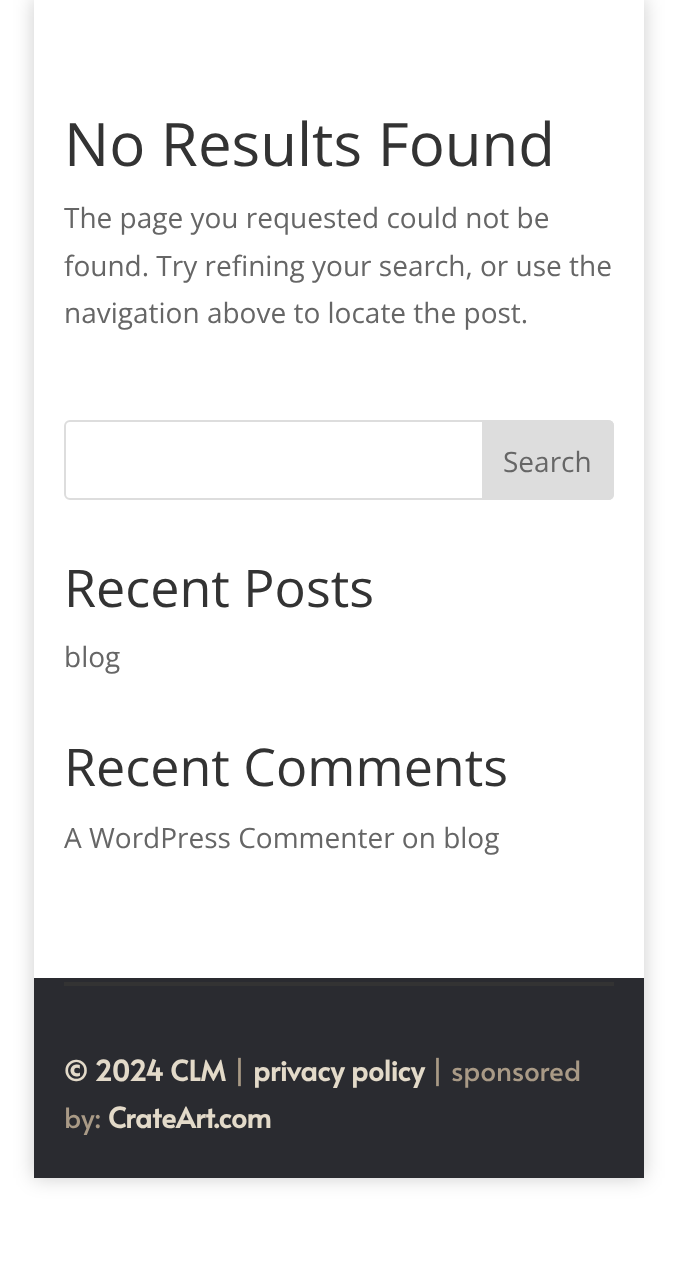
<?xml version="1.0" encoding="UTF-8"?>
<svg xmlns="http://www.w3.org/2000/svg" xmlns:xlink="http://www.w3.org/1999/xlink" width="677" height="1264">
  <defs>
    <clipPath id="clip1"><path d="M 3 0 h 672 v 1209 h -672 z m 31 -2 h 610 v 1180 h -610 z" clip-rule="evenodd" /></clipPath>
  </defs>
  <rect width="100%" height="100%" fill="#ffffff" />
  <g clip-path="url(#clip1)">
    <rect x="34" y="-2" width="610" height="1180" fill="#000000" fill-opacity="0.2" filter="blur(10px)" />
  </g>
  <rect x="65" y="421" width="548" height="78" rx="5" fill="none" stroke="#dddddd" stroke-width="2" />
  <path d="M 483 421 h 125 c 3 0 5 2 5 5 v 68 c 0 3 -2 5 -5 5 h -125 z" fill="#dddddd" stroke="#dddddd" stroke-width="2" />
  <rect x="34" y="978" width="610" height="200" fill="#2a2b30" />
  <rect x="64" y="982" width="550" height="4" fill="#333333" />
  <text x="64" y="166" style="font-family: Open Sans; font-size: 60px; fill: #333333">No Results Found</text>
  <text x="64" y="228" style="font-family: Open Sans; font-size: 28px; fill: #666666">The page you requested could not be</text>
  <text x="64" y="276" style="font-family: Open Sans; font-size: 28px; fill: #666666">found. Try refining your search, or use the</text>
  <text x="64" y="323" style="font-family: Open Sans; font-size: 28px; fill: #666666">navigation above to locate the post.</text>
  <text x="503" y="472" style="font-family: Open Sans; font-size: 28px; fill: #666666">Search</text>
  <text x="64" y="607" style="font-family: Open Sans; font-size: 52px; fill: #333333">Recent Posts</text>
  <text x="64" y="667" style="font-family: Open Sans; font-size: 28px; fill: #666666">blog</text>
  <text x="64" y="786" style="font-family: Open Sans; font-size: 52px; fill: #333333">Recent Comments</text>
  <text x="64" y="848" style="font-family: Open Sans; font-size: 28px; fill: #666666">A WordPress Commenter on blog</text>
  <text x="64" y="1081" style="font-family: Alata; font-size: 28px; font-weight: bold; fill: #e3dac9">© 2024 CLM</text>
  <text x="233" y="1081" style="font-family: Alata; font-size: 28px; fill: #a99a86">|</text>
  <text x="253" y="1081" style="font-family: Alata; font-size: 28px; font-weight: bold; fill: #e3dac9">privacy policy</text>
  <text x="431" y="1081" style="font-family: Alata; font-size: 28px; fill: #a99a86">| sponsored</text>
  <text x="64" y="1128" style="font-family: Alata; font-size: 28px; fill: #a99a86">by:</text>
  <text x="108" y="1128" style="font-family: Alata; font-size: 28px; font-weight: bold; fill: #e3dac9">CrateArt.com</text>
</svg>
